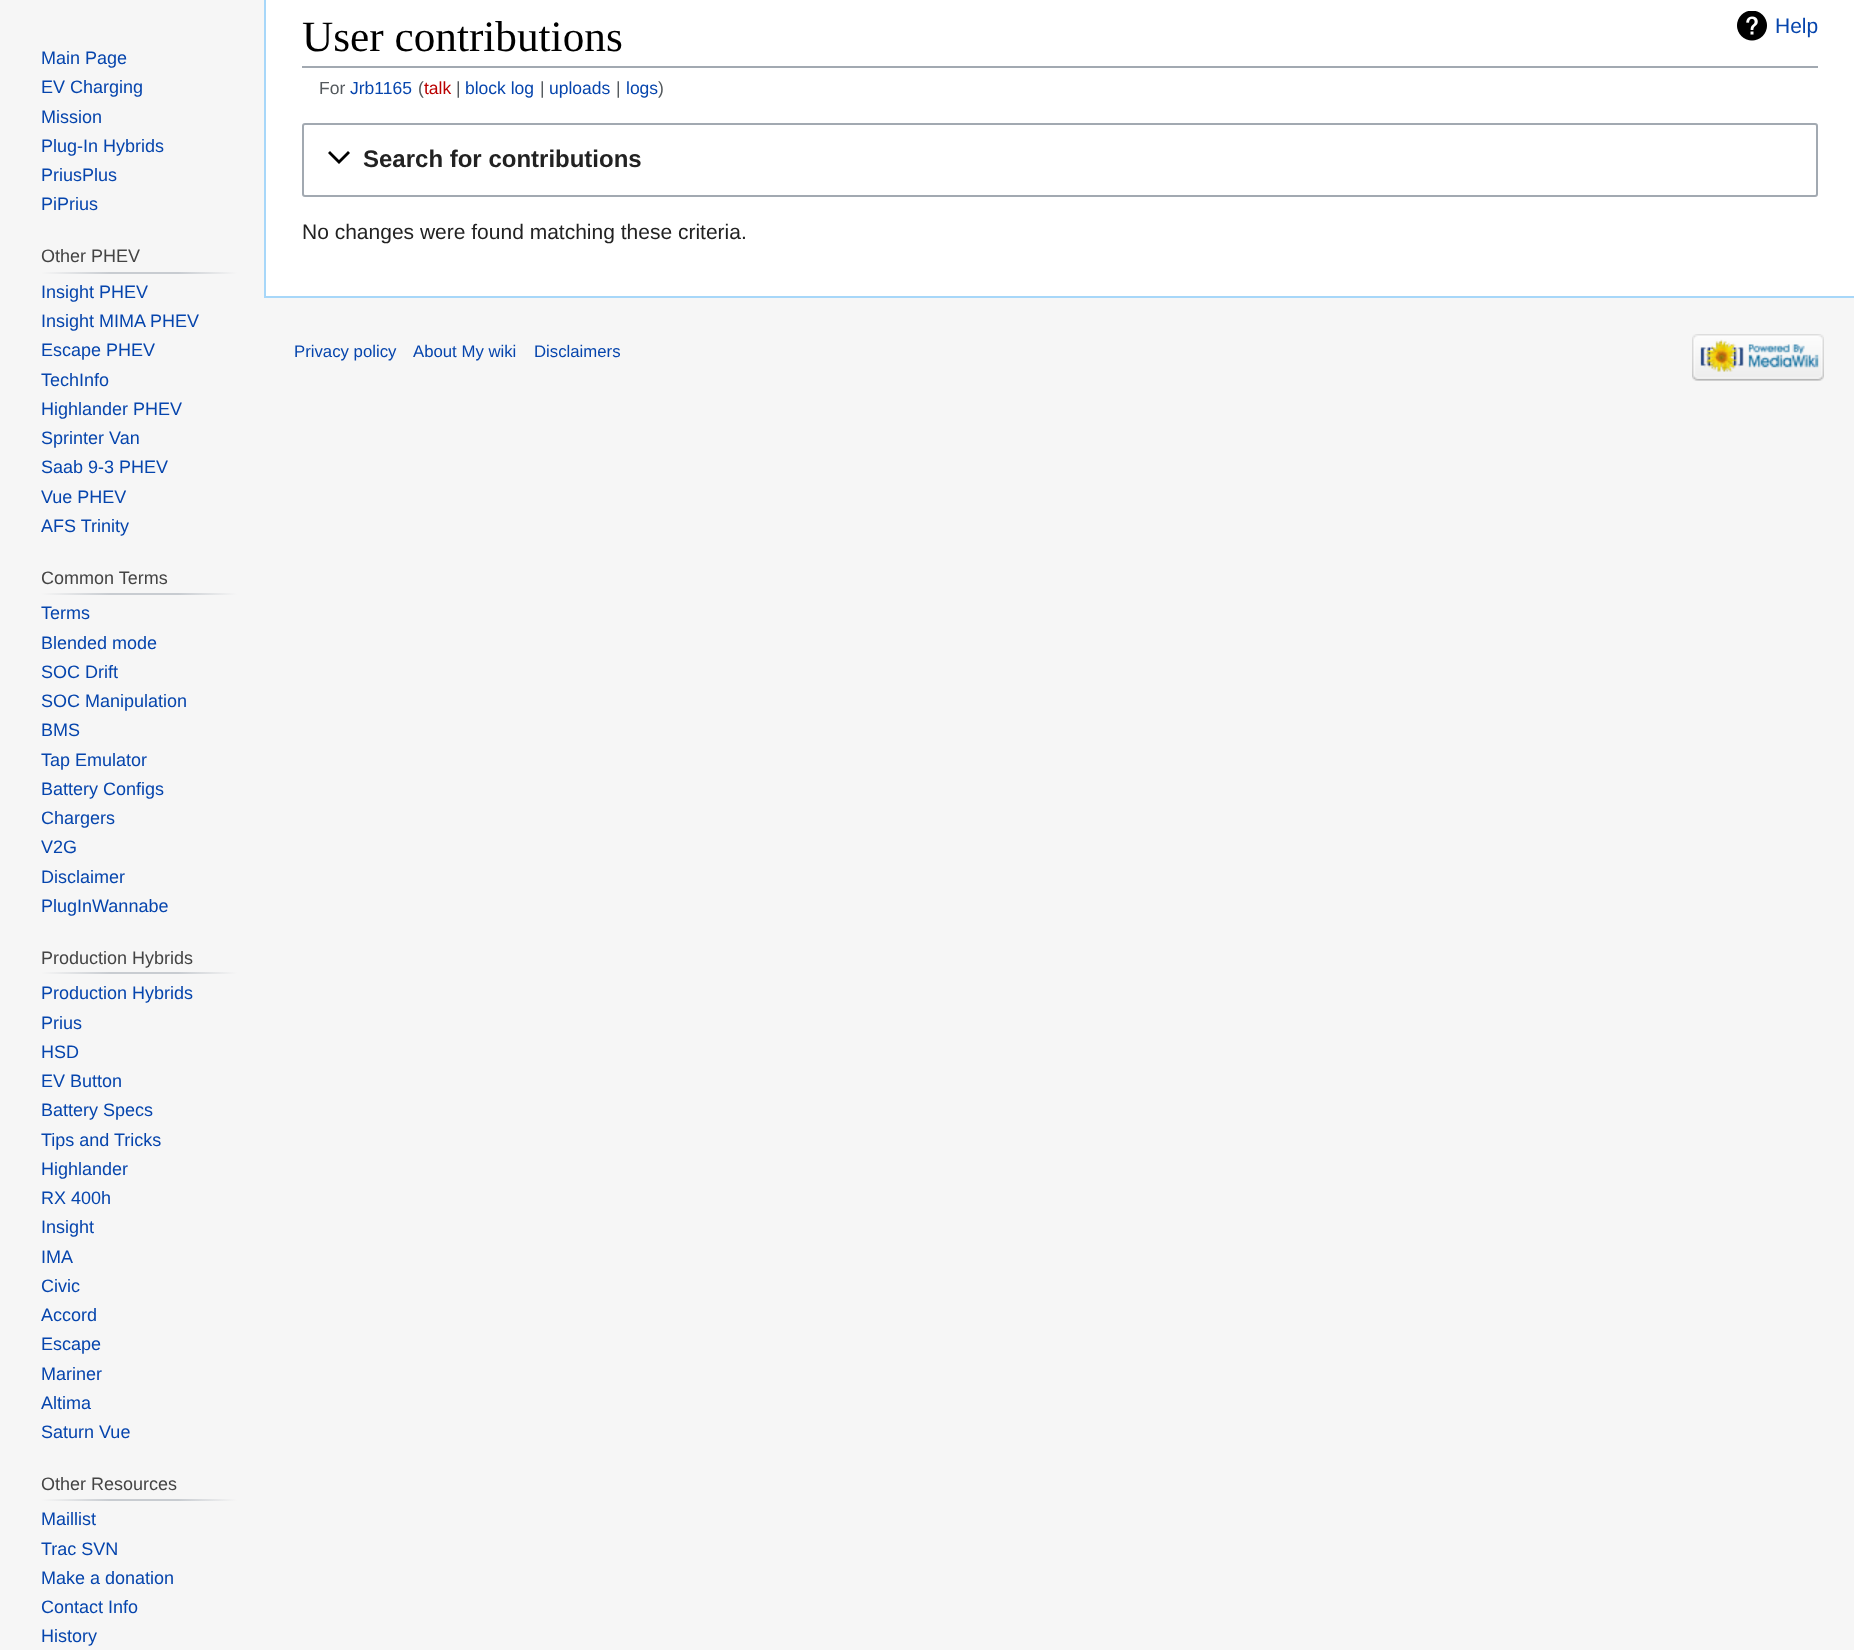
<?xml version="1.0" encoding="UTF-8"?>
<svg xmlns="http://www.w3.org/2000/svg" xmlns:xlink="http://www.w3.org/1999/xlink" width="1854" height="1650">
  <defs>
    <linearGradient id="g1" gradientUnits="userSpaceOnUse" x1="41" y1="272" x2="237" y2="272"><stop offset="0" stop-color="#f6f6f6" /><stop offset="0.35" stop-color="#c8ccd1" /><stop offset="0.7" stop-color="#c8ccd1" /><stop offset="1" stop-color="#f6f6f6" /></linearGradient>
    <linearGradient id="g2" gradientUnits="userSpaceOnUse" x1="41" y1="593" x2="237" y2="593"><stop offset="0" stop-color="#f6f6f6" /><stop offset="0.35" stop-color="#c8ccd1" /><stop offset="0.7" stop-color="#c8ccd1" /><stop offset="1" stop-color="#f6f6f6" /></linearGradient>
    <linearGradient id="g3" gradientUnits="userSpaceOnUse" x1="41" y1="973" x2="237" y2="973"><stop offset="0" stop-color="#f6f6f6" /><stop offset="0.35" stop-color="#c8ccd1" /><stop offset="0.7" stop-color="#c8ccd1" /><stop offset="1" stop-color="#f6f6f6" /></linearGradient>
    <linearGradient id="g4" gradientUnits="userSpaceOnUse" x1="41" y1="1499" x2="237" y2="1499"><stop offset="0" stop-color="#f6f6f6" /><stop offset="0.35" stop-color="#c8ccd1" /><stop offset="0.7" stop-color="#c8ccd1" /><stop offset="1" stop-color="#f6f6f6" /></linearGradient>
  </defs>
  <rect width="100%" height="100%" fill="#f6f6f6" />
  <rect x="41" y="272" width="196" height="2" fill="url(#g1)" />
  <rect x="41" y="593" width="196" height="2" fill="url(#g2)" />
  <rect x="41" y="972" width="196" height="2" fill="url(#g3)" />
  <rect x="41" y="1499" width="196" height="2" fill="url(#g4)" />
  <rect x="266" width="1588" height="296" fill="#ffffff" />
  <rect x="264" y="296" width="1590" height="2" fill="#a7d7f9" />
  <rect x="264" width="2" height="297" fill="#a7d7f9" />
  <rect x="302" y="66" width="1516" height="2" fill="#a2a9b1" />
  <image x="1737" y="11" width="30" height="30" xlink:href="image1.png" />
  <rect x="303" y="124" width="1514" height="72" rx="2" fill="none" stroke="#a2a9b1" stroke-width="2" />
  <path d="M 348 151 l -9 9 l -9 -9 l -2 2 l 11 11 l 11 -11 z" fill="#000000" />
  <image x="1692" y="334" width="132" height="47" xlink:href="image2.png" />
  <text x="41" y="64" style="font-family: Liberation Sans; font-size: 18px; fill: #0645ad">Main Page</text>
  <text x="41" y="93" style="font-family: Liberation Sans; font-size: 18px; fill: #0645ad">EV Charging</text>
  <text x="41" y="123" style="font-family: Liberation Sans; font-size: 18px; fill: #0645ad">Mission</text>
  <text x="41" y="152" style="font-family: Liberation Sans; font-size: 18px; fill: #0645ad">Plug-In Hybrids</text>
  <text x="41" y="181" style="font-family: Liberation Sans; font-size: 18px; fill: #0645ad">PriusPlus</text>
  <text x="41" y="210" style="font-family: Liberation Sans; font-size: 18px; fill: #0645ad">PiPrius</text>
  <text x="41" y="262" style="font-family: Liberation Sans; font-size: 18px; fill: #444444">Other PHEV</text>
  <text x="41" y="298" style="font-family: Liberation Sans; font-size: 18px; fill: #0645ad">Insight PHEV</text>
  <text x="41" y="327" style="font-family: Liberation Sans; font-size: 18px; fill: #0645ad">Insight MIMA PHEV</text>
  <text x="41" y="356" style="font-family: Liberation Sans; font-size: 18px; fill: #0645ad">Escape PHEV</text>
  <text x="41" y="386" style="font-family: Liberation Sans; font-size: 18px; fill: #0645ad">TechInfo</text>
  <text x="41" y="415" style="font-family: Liberation Sans; font-size: 18px; fill: #0645ad">Highlander PHEV</text>
  <text x="41" y="444" style="font-family: Liberation Sans; font-size: 18px; fill: #0645ad">Sprinter Van</text>
  <text x="41" y="473" style="font-family: Liberation Sans; font-size: 18px; fill: #0645ad">Saab 9-3 PHEV</text>
  <text x="41" y="503" style="font-family: Liberation Sans; font-size: 18px; fill: #0645ad">Vue PHEV</text>
  <text x="41" y="532" style="font-family: Liberation Sans; font-size: 18px; fill: #0645ad">AFS Trinity</text>
  <text x="41" y="584" style="font-family: Liberation Sans; font-size: 18px; fill: #444444">Common Terms</text>
  <text x="41" y="619" style="font-family: Liberation Sans; font-size: 18px; fill: #0645ad">Terms</text>
  <text x="41" y="649" style="font-family: Liberation Sans; font-size: 18px; fill: #0645ad">Blended mode</text>
  <text x="41" y="678" style="font-family: Liberation Sans; font-size: 18px; fill: #0645ad">SOC Drift</text>
  <text x="41" y="707" style="font-family: Liberation Sans; font-size: 18px; fill: #0645ad">SOC Manipulation</text>
  <text x="41" y="736" style="font-family: Liberation Sans; font-size: 18px; fill: #0645ad">BMS</text>
  <text x="41" y="766" style="font-family: Liberation Sans; font-size: 18px; fill: #0645ad">Tap Emulator</text>
  <text x="41" y="795" style="font-family: Liberation Sans; font-size: 18px; fill: #0645ad">Battery Configs</text>
  <text x="41" y="824" style="font-family: Liberation Sans; font-size: 18px; fill: #0645ad">Chargers</text>
  <text x="41" y="853" style="font-family: Liberation Sans; font-size: 18px; fill: #0645ad">V2G</text>
  <text x="41" y="883" style="font-family: Liberation Sans; font-size: 18px; fill: #0645ad">Disclaimer</text>
  <text x="41" y="912" style="font-family: Liberation Sans; font-size: 18px; fill: #0645ad">PlugInWannabe</text>
  <text x="41" y="964" style="font-family: Liberation Sans; font-size: 18px; fill: #444444">Production Hybrids</text>
  <text x="41" y="999" style="font-family: Liberation Sans; font-size: 18px; fill: #0645ad">Production Hybrids</text>
  <text x="41" y="1029" style="font-family: Liberation Sans; font-size: 18px; fill: #0645ad">Prius</text>
  <text x="41" y="1058" style="font-family: Liberation Sans; font-size: 18px; fill: #0645ad">HSD</text>
  <text x="41" y="1087" style="font-family: Liberation Sans; font-size: 18px; fill: #0645ad">EV Button</text>
  <text x="41" y="1116" style="font-family: Liberation Sans; font-size: 18px; fill: #0645ad">Battery Specs</text>
  <text x="41" y="1146" style="font-family: Liberation Sans; font-size: 18px; fill: #0645ad">Tips and Tricks</text>
  <text x="41" y="1175" style="font-family: Liberation Sans; font-size: 18px; fill: #0645ad">Highlander</text>
  <text x="41" y="1204" style="font-family: Liberation Sans; font-size: 18px; fill: #0645ad">RX 400h</text>
  <text x="41" y="1233" style="font-family: Liberation Sans; font-size: 18px; fill: #0645ad">Insight</text>
  <text x="41" y="1263" style="font-family: Liberation Sans; font-size: 18px; fill: #0645ad">IMA</text>
  <text x="41" y="1292" style="font-family: Liberation Sans; font-size: 18px; fill: #0645ad">Civic</text>
  <text x="41" y="1321" style="font-family: Liberation Sans; font-size: 18px; fill: #0645ad">Accord</text>
  <text x="41" y="1350" style="font-family: Liberation Sans; font-size: 18px; fill: #0645ad">Escape</text>
  <text x="41" y="1380" style="font-family: Liberation Sans; font-size: 18px; fill: #0645ad">Mariner</text>
  <text x="41" y="1409" style="font-family: Liberation Sans; font-size: 18px; fill: #0645ad">Altima</text>
  <text x="41" y="1438" style="font-family: Liberation Sans; font-size: 18px; fill: #0645ad">Saturn Vue</text>
  <text x="41" y="1490" style="font-family: Liberation Sans; font-size: 18px; fill: #444444">Other Resources</text>
  <text x="41" y="1525" style="font-family: Liberation Sans; font-size: 18px; fill: #0645ad">Maillist</text>
  <text x="41" y="1555" style="font-family: Liberation Sans; font-size: 18px; fill: #0645ad">Trac SVN</text>
  <text x="41" y="1584" style="font-family: Liberation Sans; font-size: 18px; fill: #0645ad">Make a donation</text>
  <text x="41" y="1613" style="font-family: Liberation Sans; font-size: 18px; fill: #0645ad">Contact Info</text>
  <text x="41" y="1642" style="font-family: Liberation Sans; font-size: 18px; fill: #0645ad">History</text>
  <text x="302" y="51" style="font-family: Liberation Serif; font-size: 43.25px; fill: #000000">User contributions</text>
  <text x="1775" y="33" style="font-family: Liberation Sans; font-size: 21px; fill: #0645ad">Help</text>
  <text x="319" y="94" style="font-family: Liberation Sans; font-size: 17.5px; fill: #54595d">For</text>
  <text x="350" y="94" style="font-family: Liberation Sans; font-size: 17.5px; fill: #0645ad">Jrb1165</text>
  <text x="418" y="94" style="font-family: Liberation Sans; font-size: 17.5px; fill: #54595d">(</text>
  <text x="424" y="94" style="font-family: Liberation Sans; font-size: 17.5px; fill: #ba0000">talk</text>
  <text x="456" y="94" style="font-family: Liberation Sans; font-size: 17.5px; fill: #54595d">|</text>
  <text x="465" y="94" style="font-family: Liberation Sans; font-size: 17.5px; fill: #0645ad">block log</text>
  <text x="540" y="94" style="font-family: Liberation Sans; font-size: 17.5px; fill: #54595d">|</text>
  <text x="549" y="94" style="font-family: Liberation Sans; font-size: 17.5px; fill: #0645ad">uploads</text>
  <text x="616" y="94" style="font-family: Liberation Sans; font-size: 17.5px; fill: #54595d">|</text>
  <text x="626" y="94" style="font-family: Liberation Sans; font-size: 17.5px; fill: #0645ad">logs</text>
  <text x="658" y="94" style="font-family: Liberation Sans; font-size: 17.5px; fill: #54595d">)</text>
  <text x="363" y="167" style="font-family: Liberation Sans; font-size: 24px; font-weight: bold; fill: #222222">Search for contributions</text>
  <text x="302" y="239" style="font-family: Liberation Sans; font-size: 21px; fill: #222222">No changes were found matching these criteria.</text>
  <text x="294" y="357" style="font-family: Liberation Sans; font-size: 16.75px; fill: #0645ad">Privacy policy</text>
  <text x="413" y="357" style="font-family: Liberation Sans; font-size: 16.75px; fill: #0645ad">About My wiki</text>
  <text x="534" y="357" style="font-family: Liberation Sans; font-size: 16.75px; fill: #0645ad">Disclaimers</text>
</svg>
